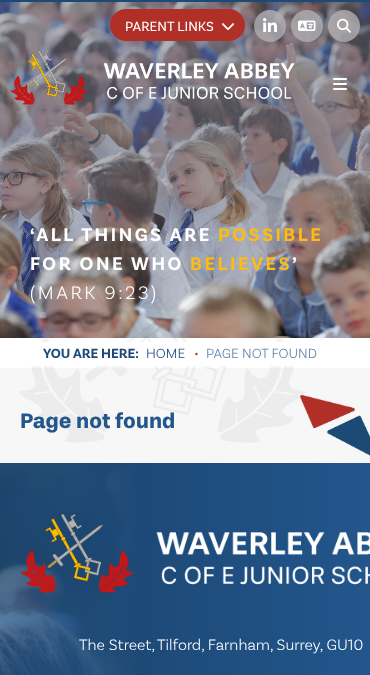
<?xml version="1.0" encoding="UTF-8"?>
<svg xmlns="http://www.w3.org/2000/svg" xmlns:xlink="http://www.w3.org/1999/xlink" width="370" height="675">
  <defs>
    <linearGradient id="g1" gradientUnits="userSpaceOnUse" x1="185" y1="0" x2="185" y2="338"><stop offset="0" stop-color="#6b6c7c" stop-opacity="0.5" /><stop offset="0.4" stop-color="#6b6c7c" stop-opacity="0.6" /><stop offset="1" stop-color="#6b6c7c" stop-opacity="0" /></linearGradient>
    <linearGradient id="g2" gradientUnits="userSpaceOnUse" x1="0" y1="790" x2="370" y2="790"><stop offset="0" stop-color="#1d4977" stop-opacity="0.1" /><stop offset="0.37" stop-color="#1d4977" /><stop offset="1" stop-color="#22568c" /></linearGradient>
  </defs>
  <rect width="100%" height="100%" fill="#ffffff" />
  <rect width="370" height="2" fill="#1d4977" />
  <image x="0" y="2" width="370" height="336" xlink:href="image7.png" />
  <rect y="368" width="370" height="95" fill="#f7f7f7" />
  <image x="19" y="241" width="287" height="202" xlink:href="image8.png" />
  <rect y="2" width="370" height="329" fill="url(#g1)" />
  <rect x="110" y="9" width="135" height="32" rx="16" fill="#b03027" />
  <image x="222" y="23" width="12" height="7" xlink:href="image1.png" />
  <circle cx="270" cy="26" r="16" fill="#b0afb1" fill-opacity="0.8" />
  <image x="263" y="18" width="14" height="14" xlink:href="image2.png" />
  <circle cx="307" cy="26" r="16" fill="#b0afb1" fill-opacity="0.8" />
  <image x="298" y="20" width="18" height="11" xlink:href="image3.png" />
  <circle cx="344" cy="26" r="16" fill="#b0afb1" fill-opacity="0.8" />
  <image x="337" y="18" width="14" height="15" xlink:href="image4.png" />
  <image x="10" y="50" width="285" height="55" xlink:href="image5.png" />
  <image x="333" y="78" width="14" height="12" xlink:href="image6.png" />
  <rect x="31" y="342" width="263" height="24" fill="#ffffff" />
  <image x="300" y="395" width="70" height="61" xlink:href="image9.png" />
  <rect y="463" width="136" height="212" fill="#22568c" />
  <image x="0" y="463" width="136" height="212" xlink:href="image10.png" />
  <rect y="463" width="370" height="212" fill="url(#g2)" />
  <image x="20" y="513" width="350" height="80" xlink:href="image11.png" />
  <text x="125" y="31" style="font-family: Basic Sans; font-size: 14px; fill: #ffffff">PARENT LINKS</text>
  <text x="30" y="241" style="font-family: Basic Sans; font-size: 19.25px; font-weight: bold; letter-spacing: 2.5px; fill: #ffffff">‘ALL THINGS ARE</text>
  <text x="218" y="241" style="font-family: Basic Sans; font-size: 19.25px; font-weight: bold; letter-spacing: 2.5px; fill: #febc11">POSSIBLE</text>
  <text x="30" y="270" style="font-family: Basic Sans; font-size: 19.25px; font-weight: bold; letter-spacing: 2.5px; fill: #ffffff">FOR ONE WHO</text>
  <text x="190" y="270" style="font-family: Basic Sans; font-size: 19.25px; font-weight: bold; letter-spacing: 2.5px; fill: #febc11">BELIEVES</text>
  <text x="292" y="270" style="font-family: Basic Sans; font-size: 19.25px; font-weight: bold; letter-spacing: 2.5px; fill: #ffffff">’</text>
  <text x="30" y="299" style="font-family: Basic Sans; font-size: 19.25px; font-weight: 300; letter-spacing: 2.5px; fill: #ffffff">(MARK 9:23)</text>
  <text x="43" y="358" style="font-family: Basic Sans; font-size: 14px; font-weight: bold; fill: #1d4977">YOU ARE HERE:</text>
  <text x="146" y="358" style="font-family: Basic Sans; font-size: 14px; font-weight: 300; fill: #1d4977">HOME</text>
  <text x="194" y="358" style="font-family: Basic Sans; font-size: 14px; font-weight: 300; fill: #b03027">•</text>
  <text x="206" y="358" style="font-family: Basic Sans; font-size: 14px; font-weight: 300; fill: #5980a9">PAGE NOT FOUND</text>
  <text x="20" y="428" style="font-family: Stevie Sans; font-size: 21.5px; font-weight: bold; fill: #22568c">Page not found</text>
  <text x="79" y="650" style="font-family: Basic Sans; font-size: 16px; font-weight: 300; fill: #ffffff">The Street,</text>
  <text x="157" y="650" style="font-family: Basic Sans; font-size: 16px; font-weight: 300; fill: #ffffff">Tilford, Farnham, Surrey, GU10</text>
</svg>
